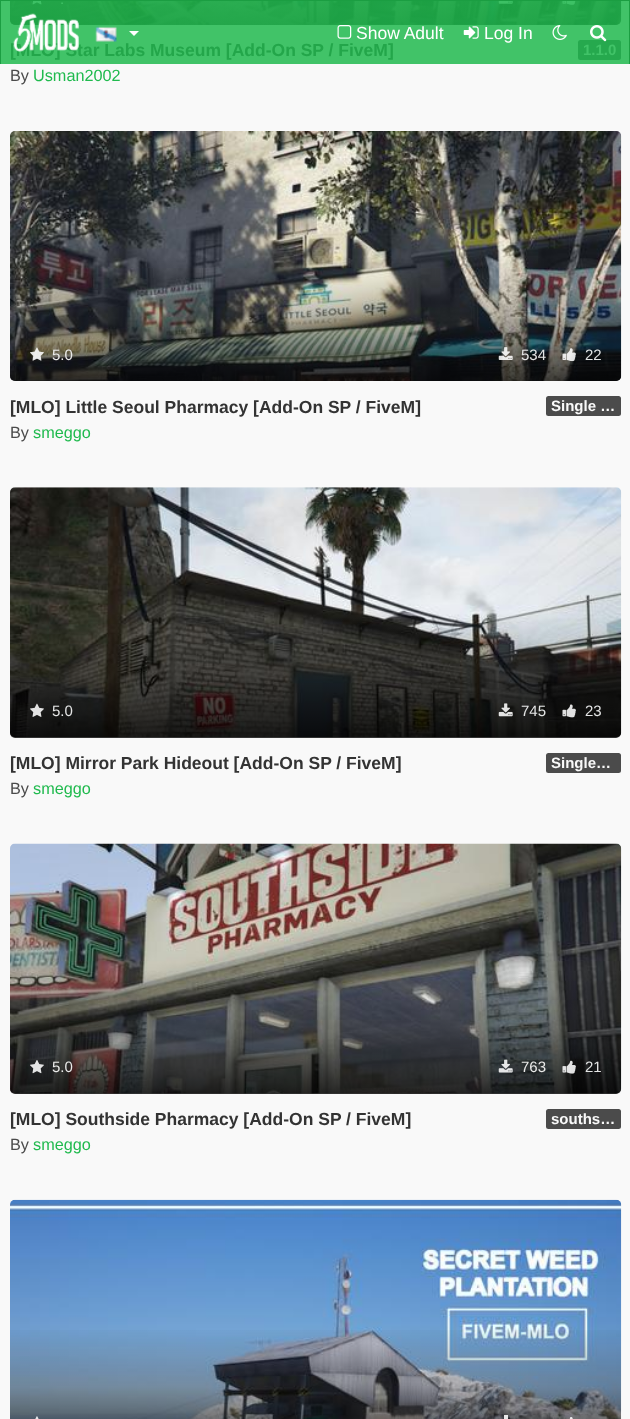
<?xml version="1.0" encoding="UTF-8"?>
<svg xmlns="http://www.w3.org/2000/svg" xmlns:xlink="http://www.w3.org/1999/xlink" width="630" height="1419">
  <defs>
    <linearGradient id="g1" gradientUnits="userSpaceOnUse" x1="316" y1="-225" x2="316" y2="25"><stop offset="0.5" stop-color="#1b9e42" stop-opacity="0" /><stop offset="0.75" stop-color="#1b9e42" stop-opacity="0.25" /><stop offset="1" stop-color="#1b9e42" stop-opacity="0.75" /></linearGradient>
    <linearGradient id="g2" gradientUnits="userSpaceOnUse" x1="316" y1="131" x2="316" y2="381"><stop offset="0.5" stop-color="#000000" stop-opacity="0" /><stop offset="0.75" stop-color="#000000" stop-opacity="0.25" /><stop offset="1" stop-color="#000000" stop-opacity="0.75" /></linearGradient>
    <linearGradient id="g3" gradientUnits="userSpaceOnUse" x1="316" y1="488" x2="316" y2="738"><stop offset="0.5" stop-color="#000000" stop-opacity="0" /><stop offset="0.75" stop-color="#000000" stop-opacity="0.25" /><stop offset="1" stop-color="#000000" stop-opacity="0.75" /></linearGradient>
    <linearGradient id="g4" gradientUnits="userSpaceOnUse" x1="316" y1="844" x2="316" y2="1094"><stop offset="0.5" stop-color="#000000" stop-opacity="0" /><stop offset="0.75" stop-color="#000000" stop-opacity="0.25" /><stop offset="1" stop-color="#000000" stop-opacity="0.75" /></linearGradient>
    <linearGradient id="g5" gradientUnits="userSpaceOnUse" x1="316" y1="1200" x2="316" y2="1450"><stop offset="0.5" stop-color="#000000" stop-opacity="0" /><stop offset="0.75" stop-color="#000000" stop-opacity="0.25" /><stop offset="1" stop-color="#000000" stop-opacity="0.75" /></linearGradient>
  </defs>
  <rect width="100%" height="100%" fill="#f9f9f9" />
  <rect x="1" y="1" width="628" height="63" fill="#41c368" />
  <image x="10" y="1" width="612" height="24" xlink:href="image1.png" />
  <rect x="10" y="-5" width="611" height="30" rx="5" fill="url(#g1)" />
  <image x="32" y="1" width="10" height="4" xlink:href="image2.png" />
  <image x="498" y="1" width="15" height="3" xlink:href="image3.png" />
  <image x="562" y="1" width="14" height="4" xlink:href="image4.png" />
  <rect x="578" y="40" width="43" height="20" rx="2.5" fill="#26a94e" />
  <image x="10" y="131" width="612" height="250" xlink:href="image5.png" />
  <rect x="10" y="131" width="611" height="250" rx="5" fill="url(#g2)" />
  <image x="30" y="347" width="14" height="14" xlink:href="image6.png" />
  <image x="498" y="347" width="15" height="13" xlink:href="image7.png" />
  <image x="562" y="348" width="14" height="14" xlink:href="image8.png" />
  <rect x="546" y="396" width="75" height="20" rx="2.5" fill="#4b4b4b" />
  <image x="10" y="487" width="612" height="251" xlink:href="image9.png" />
  <rect x="10" y="488" width="611" height="250" rx="5" fill="url(#g3)" />
  <image x="30" y="703" width="14" height="14" xlink:href="image10.png" />
  <image x="498" y="703" width="15" height="14" xlink:href="image11.png" />
  <image x="562" y="704" width="14" height="14" xlink:href="image12.png" />
  <rect x="546" y="753" width="75" height="20" rx="2.5" fill="#4b4b4b" />
  <image x="10" y="843" width="612" height="251" xlink:href="image13.png" />
  <rect x="10" y="844" width="611" height="250" rx="5" fill="url(#g4)" />
  <image x="30" y="1060" width="14" height="14" xlink:href="image14.png" />
  <image x="498" y="1059" width="15" height="14" xlink:href="image15.png" />
  <image x="562" y="1060" width="14" height="14" xlink:href="image16.png" />
  <rect x="546" y="1109" width="75" height="20" rx="2.5" fill="#4b4b4b" />
  <image x="10" y="1199" width="612" height="220" xlink:href="image17.png" />
  <rect x="10" y="1330" width="611" height="89" fill="url(#g5)" />
  <image x="35" y="1416" width="4" height="3" xlink:href="image18.png" />
  <rect x="504" y="1415" width="4" height="4" fill="#ffffff" fill-opacity="0.88" />
  <image x="569" y="1417" width="4" height="2" xlink:href="image19.png" />
  <rect width="630" height="1" fill="#1b9e42" />
  <rect x="629" width="1" height="64" fill="#1b9e42" />
  <rect width="1" height="64" fill="#1b9e42" />
  <image x="95" y="26" width="22" height="16" xlink:href="image21.png" />
  <path d="M 129 31 h 10 l -5 5 z" fill="#ffffff" />
  <image x="337" y="25" width="15" height="14" xlink:href="image22.png" />
  <image x="463" y="26" width="16" height="13" xlink:href="image23.png" />
  <image x="552" y="25" width="15" height="15" xlink:href="image24.png" />
  <image x="590" y="25" width="17" height="17" xlink:href="image25.png" />
  <text x="60" y="4" style="font-family: Liberation Sans; font-size: 15px; fill: #41c368">.</text>
  <text x="10" y="56" style="font-family: Liberation Sans; font-size: 17.5px; font-weight: bold; fill: #23a64a">[MLO] Star Labs Museum [Add-On SP / FiveM]</text>
  <text x="583" y="55" style="font-family: Liberation Sans; font-size: 15px; font-weight: bold; fill: #41c368">1.1.0</text>
  <text x="10" y="81" style="font-family: Liberation Sans; font-size: 16.25px; fill: #4b4b4b">By</text>
  <text x="33" y="81" style="font-family: Liberation Sans; font-size: 16.25px; fill: #20ba4e">Usman2002</text>
  <text x="52" y="360" style="font-family: Liberation Sans; font-size: 15px; fill: #eaeae9">5.0</text>
  <text x="521" y="360" style="font-family: Liberation Sans; font-size: 15px; fill: #e4e5e5">534</text>
  <text x="585" y="360" style="font-family: Liberation Sans; font-size: 15px; fill: #e4e5e5">22</text>
  <text x="10" y="413" style="font-family: Liberation Sans; font-size: 17.5px; font-weight: bold; fill: #333333">[MLO] Little Seoul Pharmacy [Add-On SP / FiveM]</text>
  <text x="551" y="411" style="font-family: Liberation Sans; font-size: 15px; font-weight: bold; fill: #f9f9f9">Single …</text>
  <text x="10" y="438" style="font-family: Liberation Sans; font-size: 16.25px; fill: #4b4b4b">By</text>
  <text x="33" y="438" style="font-family: Liberation Sans; font-size: 16.25px; fill: #20ba4e">smeggo</text>
  <text x="52" y="716" style="font-family: Liberation Sans; font-size: 15px; fill: #e4e5e5">5.0</text>
  <text x="521" y="716" style="font-family: Liberation Sans; font-size: 15px; fill: #e4e5e5">745</text>
  <text x="585" y="716" style="font-family: Liberation Sans; font-size: 15px; fill: #e4e5e5">23</text>
  <text x="10" y="769" style="font-family: Liberation Sans; font-size: 17.5px; font-weight: bold; fill: #333333">[MLO] Mirror Park Hideout [Add-On SP / FiveM]</text>
  <text x="551" y="768" style="font-family: Liberation Sans; font-size: 15px; font-weight: bold; fill: #f9f9f9">Single…</text>
  <text x="10" y="794" style="font-family: Liberation Sans; font-size: 16.25px; fill: #4b4b4b">By</text>
  <text x="33" y="794" style="font-family: Liberation Sans; font-size: 16.25px; fill: #20ba4e">smeggo</text>
  <text x="52" y="1072" style="font-family: Liberation Sans; font-size: 15px; fill: #eaeae9">5.0</text>
  <text x="521" y="1072" style="font-family: Liberation Sans; font-size: 15px; fill: #eaeae9">763</text>
  <text x="585" y="1072" style="font-family: Liberation Sans; font-size: 15px; fill: #e4e5e5">21</text>
  <text x="10" y="1125" style="font-family: Liberation Sans; font-size: 17.5px; font-weight: bold; fill: #333333">[MLO] Southside Pharmacy [Add-On SP / FiveM]</text>
  <text x="551" y="1124" style="font-family: Liberation Sans; font-size: 15px; font-weight: bold; fill: #f9f9f9">souths…</text>
  <text x="10" y="1150" style="font-family: Liberation Sans; font-size: 16.25px; fill: #4b4b4b">By</text>
  <text x="33" y="1150" style="font-family: Liberation Sans; font-size: 16.25px; fill: #20ba4e">smeggo</text>
  <image x="13" y="13" width="66" height="39" xlink:href="image20.png" />
  <text x="356" y="39" style="font-family: Liberation Sans; font-size: 17.5px; fill: #ffffff">Show Adult</text>
  <text x="484" y="39" style="font-family: Liberation Sans; font-size: 17.5px; fill: #ffffff">Log In</text>
</svg>
